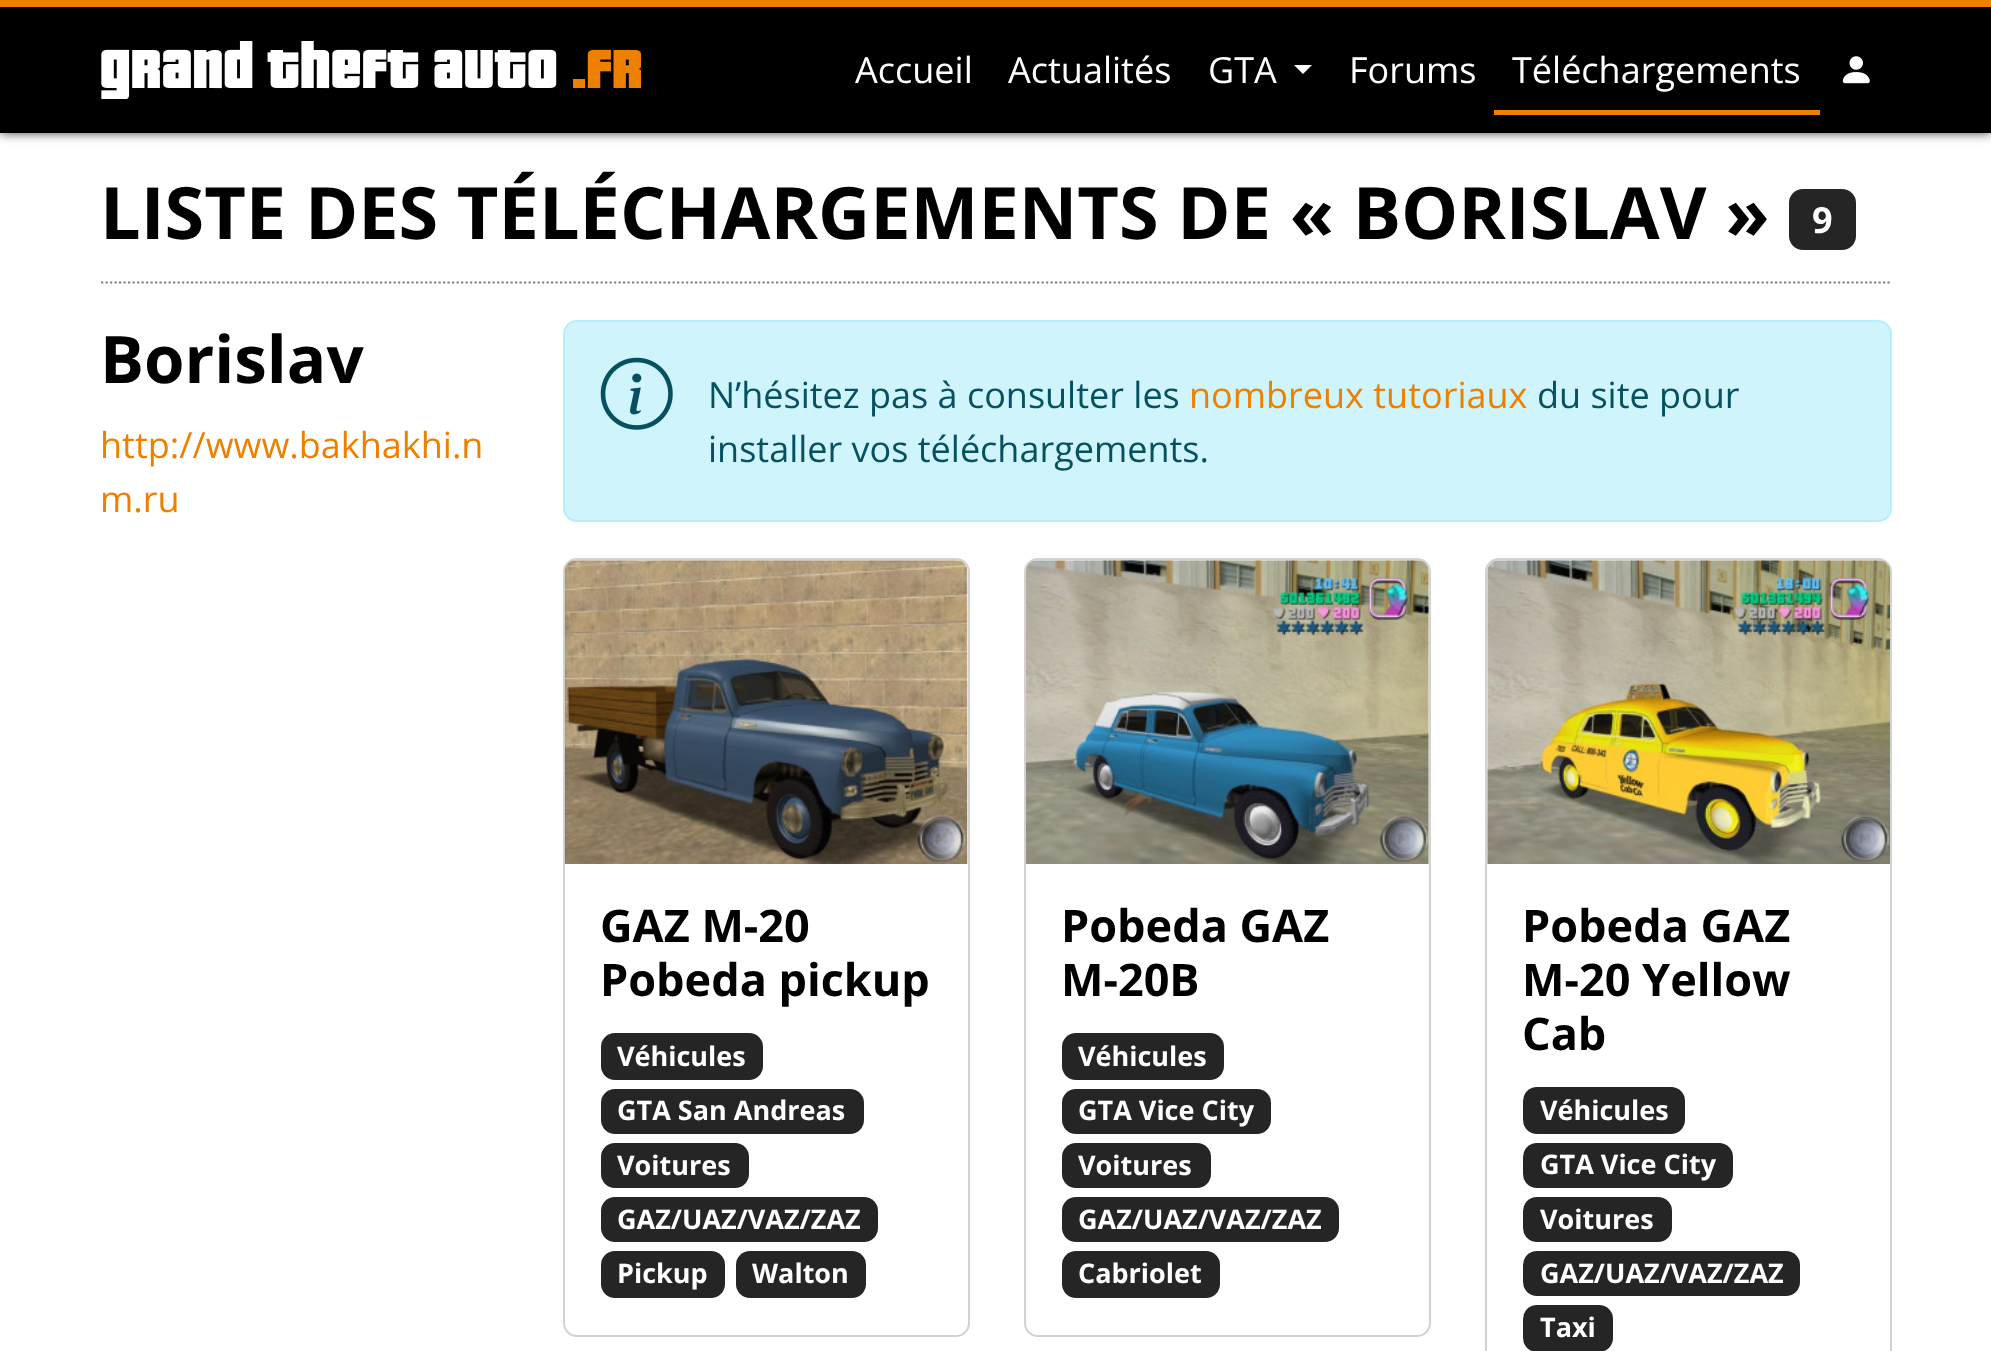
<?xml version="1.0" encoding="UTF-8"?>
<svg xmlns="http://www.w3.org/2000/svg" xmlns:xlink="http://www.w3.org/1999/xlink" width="1991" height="1351">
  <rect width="100%" height="100%" fill="#ffffff" />
  <rect width="1991" height="133" fill="#000000" fill-opacity="0.75" filter="blur(5.5px)" />
  <rect y="7" width="1991" height="126" fill="#000000" />
  <rect width="1991" height="7" fill="#ee8000" />
  <image x="101" y="41" width="540" height="58" xlink:href="image1.png" />
  <path d="M 1294 65 h 18 l -9 9 z" fill="#ffffff" />
  <rect x="1494" y="110" width="326" height="5" fill="#ee8000" />
  <image x="1842" y="56" width="28" height="28" xlink:href="image2.png" />
  <path d="M 101 282.5 h 1791" fill="none" stroke="#808080" stroke-width="2.2" stroke-dasharray="2.25 2.25" />
  <rect x="1789" y="189" width="67" height="61" rx="14" fill="#252525" />
  <rect x="564" y="321" width="1327" height="200" rx="13" fill="#cff4fc" stroke="#b6effb" stroke-width="2" />
  <image x="600" y="357" width="73" height="73" xlink:href="image3.png" />
  <rect x="564" y="559" width="405" height="777" rx="13" fill="none" stroke="#d2d2d2" stroke-width="2" />
  <image x="564" y="560" width="404" height="304" xlink:href="image4.png" />
  <rect x="601" y="1033" width="162" height="47" rx="14" fill="#252525" />
  <rect x="601" y="1089" width="263" height="45" rx="14" fill="#252525" />
  <rect x="601" y="1143" width="148" height="45" rx="14" fill="#252525" />
  <rect x="601" y="1197" width="277" height="45" rx="14" fill="#252525" />
  <rect x="601" y="1251" width="124" height="47" rx="14" fill="#252525" />
  <rect x="736" y="1251" width="130" height="47" rx="14" fill="#252525" />
  <rect x="1025" y="559" width="405" height="777" rx="13" fill="none" stroke="#d2d2d2" stroke-width="2" />
  <image x="1026" y="560" width="403" height="304" xlink:href="image5.png" />
  <rect x="1062" y="1033" width="162" height="47" rx="14" fill="#252525" />
  <rect x="1062" y="1089" width="209" height="45" rx="14" fill="#252525" />
  <rect x="1062" y="1143" width="149" height="45" rx="14" fill="#252525" />
  <rect x="1062" y="1197" width="277" height="45" rx="14" fill="#252525" />
  <rect x="1062" y="1251" width="158" height="47" rx="14" fill="#252525" />
  <rect x="1486" y="559" width="405" height="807" rx="13" fill="none" stroke="#d2d2d2" stroke-width="2" />
  <image x="1487" y="560" width="403" height="304" xlink:href="image6.png" />
  <rect x="1523" y="1087" width="162" height="47" rx="14" fill="#252525" />
  <rect x="1523" y="1143" width="210" height="45" rx="14" fill="#252525" />
  <rect x="1523" y="1197" width="149" height="45" rx="14" fill="#252525" />
  <rect x="1523" y="1251" width="277" height="45" rx="14" fill="#252525" />
  <rect x="1523" y="1305" width="90" height="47" rx="14" fill="#252525" />
  <text x="855" y="83" style="font-family: Open Sans; font-size: 36px; fill: #ffffff">Accueil</text>
  <text x="1008" y="83" style="font-family: Open Sans; font-size: 36px; fill: #ffffff">Actualités</text>
  <text x="1208" y="83" style="font-family: Open Sans; font-size: 36px; fill: #ffffff">GTA</text>
  <text x="1349" y="83" style="font-family: Open Sans; font-size: 36px; fill: #ffffff">Forums</text>
  <text x="1512" y="83" style="font-family: Open Sans; font-size: 36px; fill: #ffffff">Téléchargements</text>
  <text x="100" y="239" style="font-family: Open Sans; font-size: 72px; font-weight: bold; fill: #000000">LISTE DES TÉLÉCHARGEMENTS DE « BORISLAV »</text>
  <text x="1812" y="233" style="font-family: Open Sans; font-size: 36px; font-weight: bold; fill: #ffffff">9</text>
  <text x="100" y="383" style="font-family: Open Sans; font-size: 65.5px; font-weight: bold; fill: #000000">Borislav</text>
  <text x="100" y="458" style="font-family: Open Sans; font-size: 36px; fill: #ee8000">http://www.bakhakhi.n</text>
  <text x="100" y="512" style="font-family: Open Sans; font-size: 36px; fill: #ee8000">m.ru</text>
  <text x="708" y="408" style="font-family: Open Sans; font-size: 36px; fill: #055160">N’hésitez pas à consulter les</text>
  <text x="1189" y="408" style="font-family: Open Sans; font-size: 36px; fill: #ee8000">nombreux tutoriaux</text>
  <text x="1537" y="408" style="font-family: Open Sans; font-size: 36px; fill: #055160">du site pour</text>
  <text x="708" y="462" style="font-family: Open Sans; font-size: 36px; fill: #055160">installer vos téléchargements.</text>
  <text x="600" y="942" style="font-family: Open Sans; font-size: 45px; font-weight: bold; fill: #000000">GAZ M-20</text>
  <text x="600" y="996" style="font-family: Open Sans; font-size: 45px; font-weight: bold; fill: #000000">Pobeda pickup</text>
  <text x="617" y="1066" style="font-family: Open Sans; font-size: 27px; font-weight: bold; fill: #ffffff">Véhicules</text>
  <text x="617" y="1120" style="font-family: Open Sans; font-size: 27px; font-weight: bold; fill: #ffffff">GTA San Andreas</text>
  <text x="617" y="1175" style="font-family: Open Sans; font-size: 27px; font-weight: bold; fill: #ffffff">Voitures</text>
  <text x="617" y="1229" style="font-family: Open Sans; font-size: 27px; font-weight: bold; fill: #ffffff">GAZ/UAZ/VAZ/ZAZ</text>
  <text x="617" y="1283" style="font-family: Open Sans; font-size: 27px; font-weight: bold; fill: #ffffff">Pickup</text>
  <text x="752" y="1283" style="font-family: Open Sans; font-size: 27px; font-weight: bold; fill: #ffffff">Walton</text>
  <text x="1061" y="942" style="font-family: Open Sans; font-size: 45px; font-weight: bold; fill: #000000">Pobeda GAZ</text>
  <text x="1061" y="996" style="font-family: Open Sans; font-size: 45px; font-weight: bold; fill: #000000">M-20B</text>
  <text x="1078" y="1066" style="font-family: Open Sans; font-size: 27px; font-weight: bold; fill: #ffffff">Véhicules</text>
  <text x="1078" y="1120" style="font-family: Open Sans; font-size: 27px; font-weight: bold; fill: #ffffff">GTA Vice City</text>
  <text x="1078" y="1175" style="font-family: Open Sans; font-size: 27px; font-weight: bold; fill: #ffffff">Voitures</text>
  <text x="1078" y="1229" style="font-family: Open Sans; font-size: 27px; font-weight: bold; fill: #ffffff">GAZ/UAZ/VAZ/ZAZ</text>
  <text x="1078" y="1283" style="font-family: Open Sans; font-size: 27px; font-weight: bold; fill: #ffffff">Cabriolet</text>
  <text x="1522" y="942" style="font-family: Open Sans; font-size: 45px; font-weight: bold; fill: #000000">Pobeda GAZ</text>
  <text x="1522" y="996" style="font-family: Open Sans; font-size: 45px; font-weight: bold; fill: #000000">M-20 Yellow</text>
  <text x="1522" y="1050" style="font-family: Open Sans; font-size: 45px; font-weight: bold; fill: #000000">Cab</text>
  <text x="1540" y="1120" style="font-family: Open Sans; font-size: 27px; font-weight: bold; fill: #ffffff">Véhicules</text>
  <text x="1540" y="1174" style="font-family: Open Sans; font-size: 27px; font-weight: bold; fill: #ffffff">GTA Vice City</text>
  <text x="1540" y="1229" style="font-family: Open Sans; font-size: 27px; font-weight: bold; fill: #ffffff">Voitures</text>
  <text x="1540" y="1283" style="font-family: Open Sans; font-size: 27px; font-weight: bold; fill: #ffffff">GAZ/UAZ/VAZ/ZAZ</text>
  <text x="1540" y="1337" style="font-family: Open Sans; font-size: 27px; font-weight: bold; fill: #ffffff">Taxi</text>
</svg>
